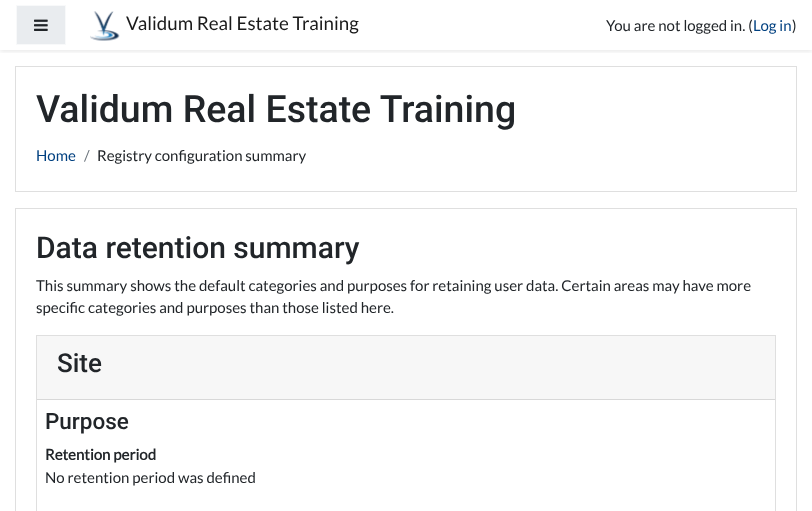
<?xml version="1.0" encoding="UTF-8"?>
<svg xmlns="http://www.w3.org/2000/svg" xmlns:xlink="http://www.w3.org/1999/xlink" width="812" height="511">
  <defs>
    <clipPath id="clip1"><rect x="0" y="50" width="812" height="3" /></clipPath>
  </defs>
  <rect width="100%" height="100%" fill="#ffffff" />
  <g clip-path="url(#clip1)">
    <rect y="2" width="812" height="50" fill="#000000" fill-opacity="0.08" filter="blur(2px)" />
  </g>
  <rect x="16.5" y="5.5" width="49" height="39" fill="#e9ecef" stroke="#f8f9fa" />
  <image x="34" y="19" width="14" height="12" xlink:href="image1.png" />
  <image x="90" y="11" width="30" height="30" xlink:href="image2.png" />
  <rect x="15.5" y="66.5" width="781" height="125" fill="none" stroke="#dfdfdf" />
  <rect x="15.5" y="208.5" width="781" height="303" fill="none" stroke="#dfdfdf" />
  <rect x="36.5" y="335.5" width="739" height="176" fill="none" stroke="#dfdfdf" />
  <rect x="37" y="336" width="738" height="63" fill="#f7f7f7" />
  <rect x="37" y="399" width="738" height="1" fill="#d8d8d8" />
  <text x="126" y="30" style="font-family: Lato; font-size: 18.75px; fill: #1a1a1a">Validum Real Estate Training</text>
  <text x="606" y="31" style="font-family: Lato; font-size: 15px; fill: #212529">You are not logged in. (</text>
  <text x="753" y="31" style="font-family: Lato; font-size: 15px; fill: #004080">Log in</text>
  <text x="792" y="31" style="font-family: Lato; font-size: 15px; fill: #212529">)</text>
  <text x="36" y="122" style="font-family: Roboto; font-size: 37.5px; font-weight: 500; fill: #212529">Validum Real Estate Training</text>
  <text x="36" y="161" style="font-family: Lato; font-size: 15px; fill: #004080">Home</text>
  <text x="84" y="161" style="font-family: Lato; font-size: 15px; fill: #6c757d">/</text>
  <text x="97" y="161" style="font-family: Lato; font-size: 15px; fill: #212529">Registry configuration summary</text>
  <text x="36" y="258" style="font-family: Roboto; font-size: 30px; font-weight: 500; fill: #212529">Data retention summary</text>
  <text x="36" y="291" style="font-family: Lato; font-size: 15px; fill: #212529">This summary shows the default categories and purposes for retaining user data. Certain areas may have more</text>
  <text x="36" y="313" style="font-family: Lato; font-size: 15px; fill: #212529">specific categories and purposes than those listed here.</text>
  <text x="57" y="372" style="font-family: Roboto; font-size: 26px; font-weight: 500; fill: #212529">Site</text>
  <text x="45" y="429" style="font-family: Roboto; font-size: 22.5px; font-weight: 500; fill: #212529">Purpose</text>
  <text x="45" y="460" style="font-family: Lato; font-size: 15px; font-weight: bold; fill: #212529">Retention period</text>
  <text x="45" y="483" style="font-family: Lato; font-size: 15px; fill: #212529">No retention period was defined</text>
</svg>
